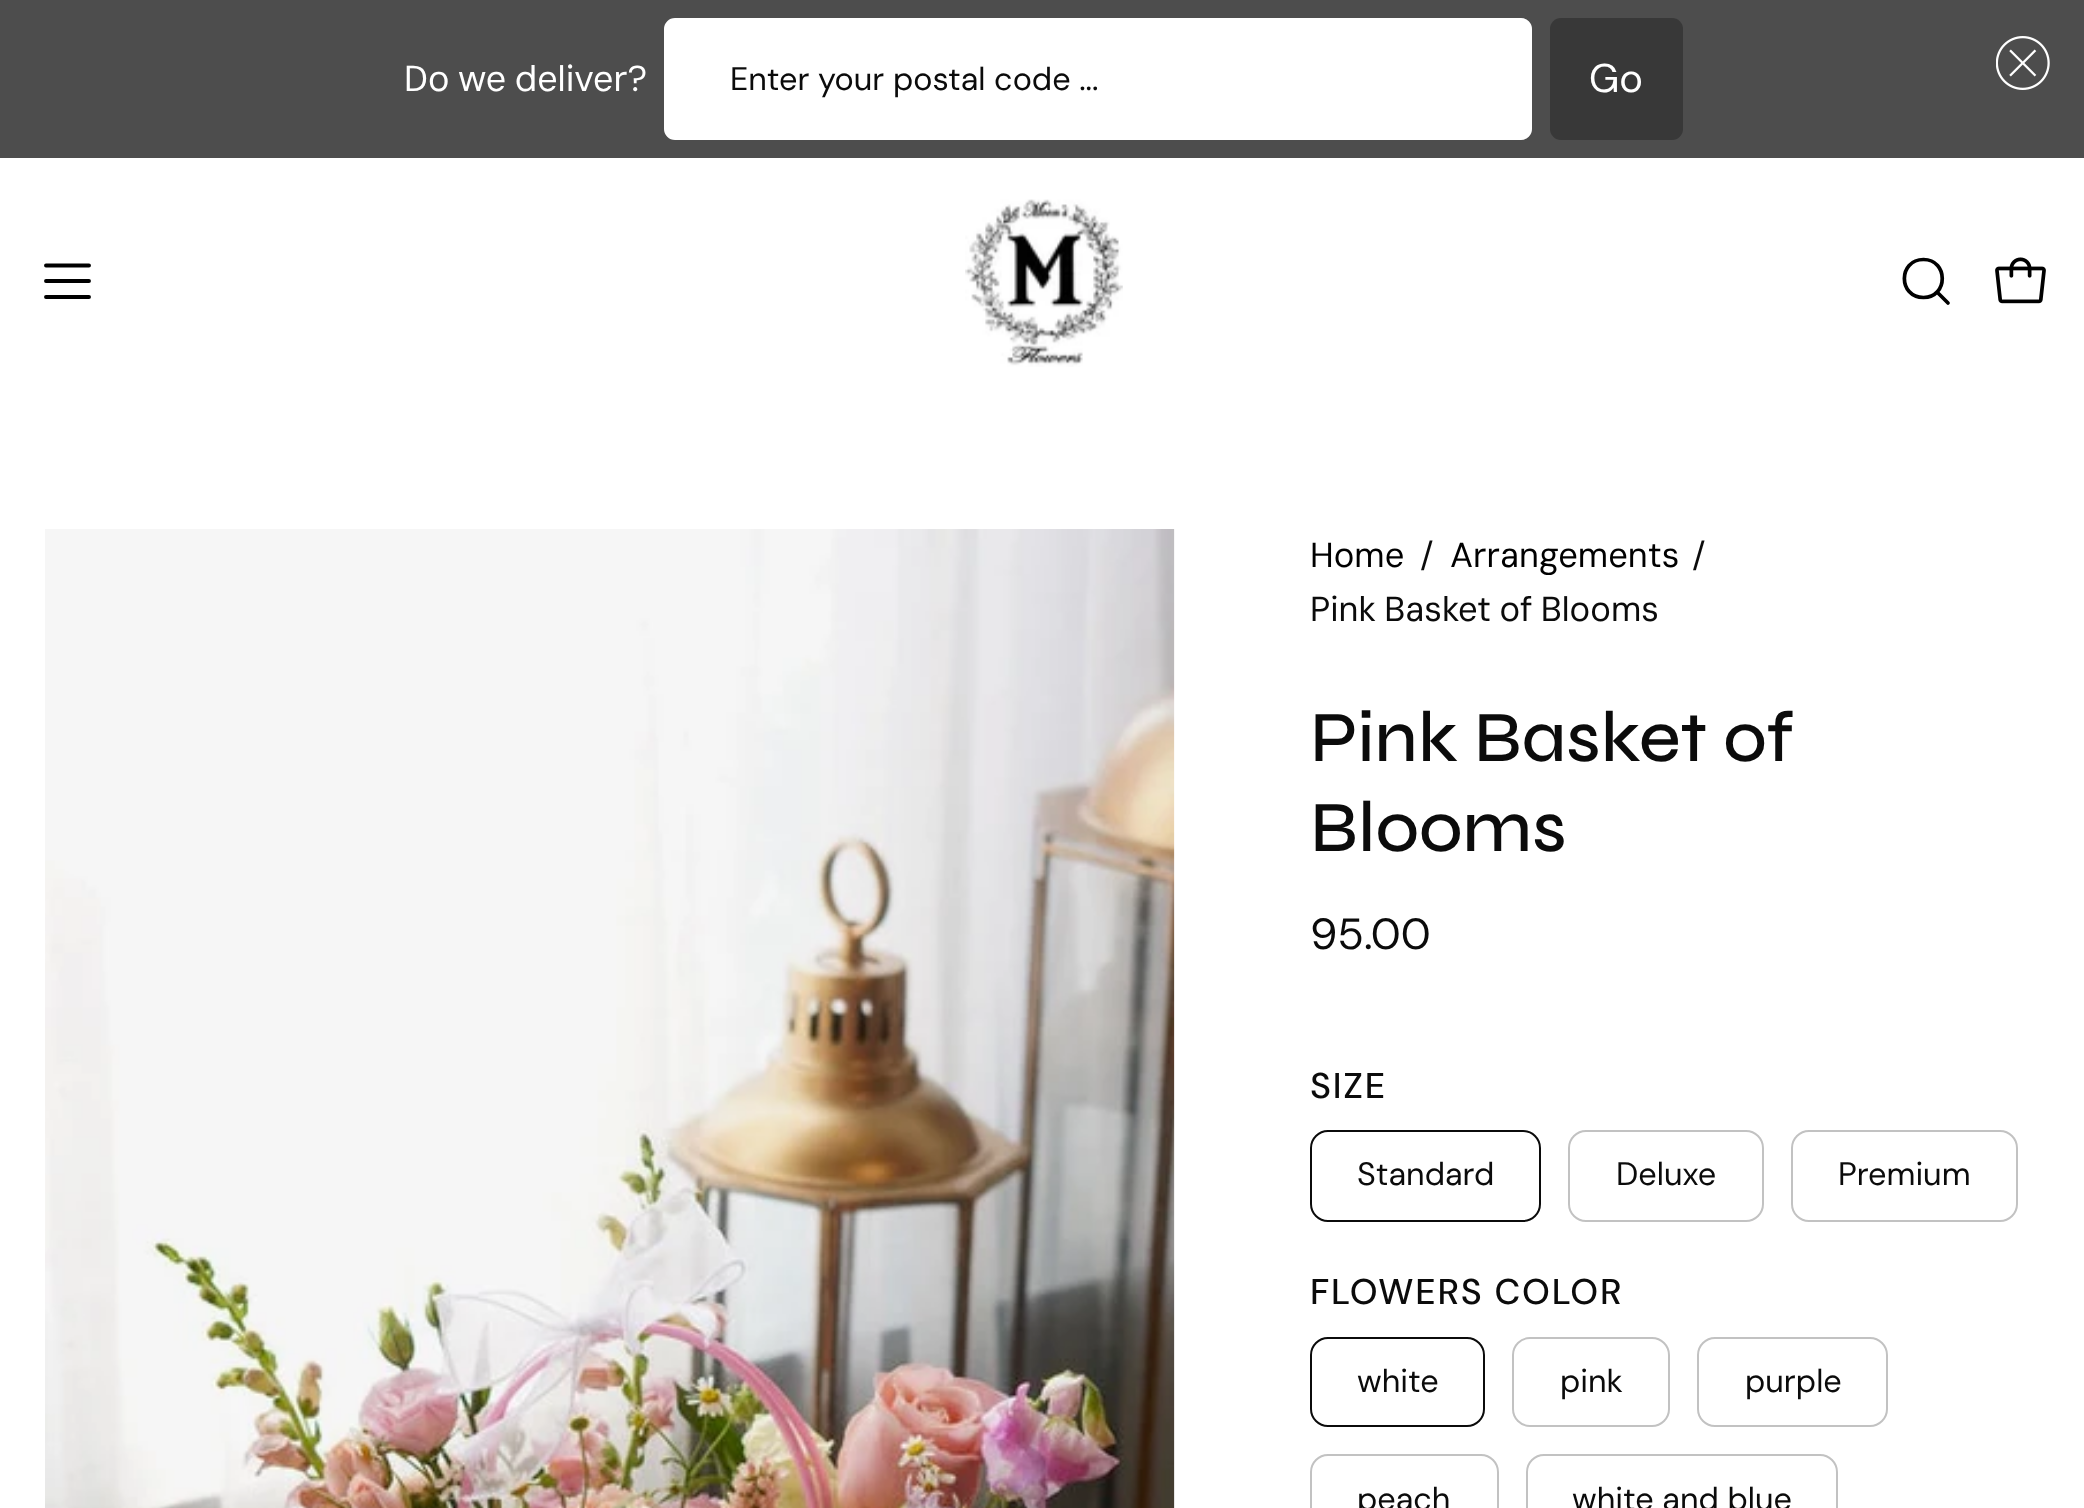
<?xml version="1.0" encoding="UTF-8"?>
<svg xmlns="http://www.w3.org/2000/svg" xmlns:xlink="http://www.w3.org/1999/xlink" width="2084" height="1508">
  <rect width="100%" height="100%" fill="#ffffff" />
  <rect width="2084" height="158" fill="#4d4d4d" />
  <rect x="665" y="19" width="866" height="120" rx="10" fill="#ffffff" stroke="#ffffff" stroke-width="2" />
  <rect x="1550" y="18" width="133" height="122" rx="11" fill="#383838" />
  <image x="1996" y="36" width="54" height="54" xlink:href="image1.png" />
  <path d="M 46 281 h 43 m -43 -15.5 h 43 m -43 31.5 h 43" fill="none" stroke="#000000" stroke-width="3.9" stroke-linecap="round" stroke-linejoin="round" />
  <image x="965" y="199" width="158" height="168" xlink:href="image2.png" />
  <path d="M 1923.5 297.5 c 25 0 25 -38 0 -38 c -25.5 0 -25.5 38 0 38 z m 13.5 -5.5 l 11 11" fill="none" stroke="#000000" stroke-width="3.7" stroke-linecap="round" stroke-linejoin="round" />
  <image x="1995" y="257" width="51" height="47" xlink:href="image3.png" />
  <image x="45" y="529" width="1130" height="979" xlink:href="image4.png" />
  <rect x="1311" y="1131" width="229" height="90" rx="17" fill="none" stroke="#0b0b0b" stroke-width="2" />
  <rect x="1569" y="1131" width="194" height="90" rx="17" fill="none" stroke="#c2c2c2" stroke-width="2" />
  <rect x="1792" y="1131" width="225" height="90" rx="17" fill="none" stroke="#c2c2c2" stroke-width="2" />
  <rect x="1311" y="1338" width="173" height="88" rx="17" fill="none" stroke="#0b0b0b" stroke-width="2" />
  <rect x="1513" y="1338" width="156" height="88" rx="17" fill="none" stroke="#c2c2c2" stroke-width="2" />
  <rect x="1698" y="1338" width="189" height="88" rx="17" fill="none" stroke="#c2c2c2" stroke-width="2" />
  <rect x="1311" y="1455" width="187" height="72" rx="17" fill="none" stroke="#c2c2c2" stroke-width="2" />
  <rect x="1527" y="1455" width="310" height="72" rx="17" fill="none" stroke="#c2c2c2" stroke-width="2" />
  <text x="404" y="91" word-spacing="-1" style="font-family: DM Sans; font-size: 36px; fill: #ffffff">Do we deliver?</text>
  <text x="730" y="90" style="font-family: 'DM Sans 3'; font-size: 32.4px; fill: #0b0b0b">Enter your postal code ...</text>
  <text x="1589" y="92" style="font-family: 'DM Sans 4'; font-size: 40px; fill: #ffffff">Go</text>
  <text x="1310" y="567" style="font-family: DM Sans; font-size: 34.6px; fill: #000000">Home</text>
  <text x="1420" y="567" style="font-family: DM Sans; font-size: 34.6px; fill: #0b0b0b">/</text>
  <text x="1450" y="567" style="font-family: DM Sans; font-size: 34.6px; fill: #000000">Arrangements</text>
  <text x="1692" y="567" style="font-family: DM Sans; font-size: 34.6px; fill: #0b0b0b">/</text>
  <text x="1310" y="621" word-spacing="-1" style="font-family: DM Sans; font-size: 34.6px; fill: #0b0b0b">Pink Basket of Blooms</text>
  <text x="1310" y="761" style="font-family: Syne; font-size: 72px; font-weight: 500; fill: #0b0b0b">Pink Basket of</text>
  <text x="1310" y="851" style="font-family: Syne; font-size: 72px; font-weight: 500; fill: #0b0b0b">Blooms</text>
  <text x="1310" y="949" style="font-family: 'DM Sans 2'; font-size: 43.5px; fill: #0b0b0b">95.00</text>
  <text x="1310" y="1098" style="font-family: DM Sans; font-size: 35.75px; font-weight: 500; letter-spacing: 1.75px; fill: #0b0b0b">SIZE</text>
  <text x="1357" y="1185" style="font-family: 'DM Sans 3'; font-size: 32.4px; fill: #0b0b0b">Standard</text>
  <text x="1616" y="1185" style="font-family: 'DM Sans 3'; font-size: 32.4px; fill: #0b0b0b">Deluxe</text>
  <text x="1838" y="1185" style="font-family: 'DM Sans 3'; font-size: 32.4px; fill: #0b0b0b">Premium</text>
  <text x="1310" y="1304" style="font-family: DM Sans; font-size: 35.75px; font-weight: 500; letter-spacing: 1.75px; fill: #0b0b0b">FLOWERS COLOR</text>
  <text x="1357" y="1392" style="font-family: 'DM Sans 3'; font-size: 32.4px; fill: #0b0b0b">white</text>
  <text x="1560" y="1392" style="font-family: 'DM Sans 3'; font-size: 32.4px; fill: #0b0b0b">pink</text>
  <text x="1745" y="1392" style="font-family: 'DM Sans 3'; font-size: 32.4px; fill: #0b0b0b">purple</text>
  <text x="1357" y="1510" style="font-family: 'DM Sans 3'; font-size: 32.4px; fill: #0b0b0b">peach</text>
  <text x="1572" y="1510" style="font-family: 'DM Sans 3'; font-size: 32.4px; fill: #0b0b0b">white and blue</text>
</svg>
